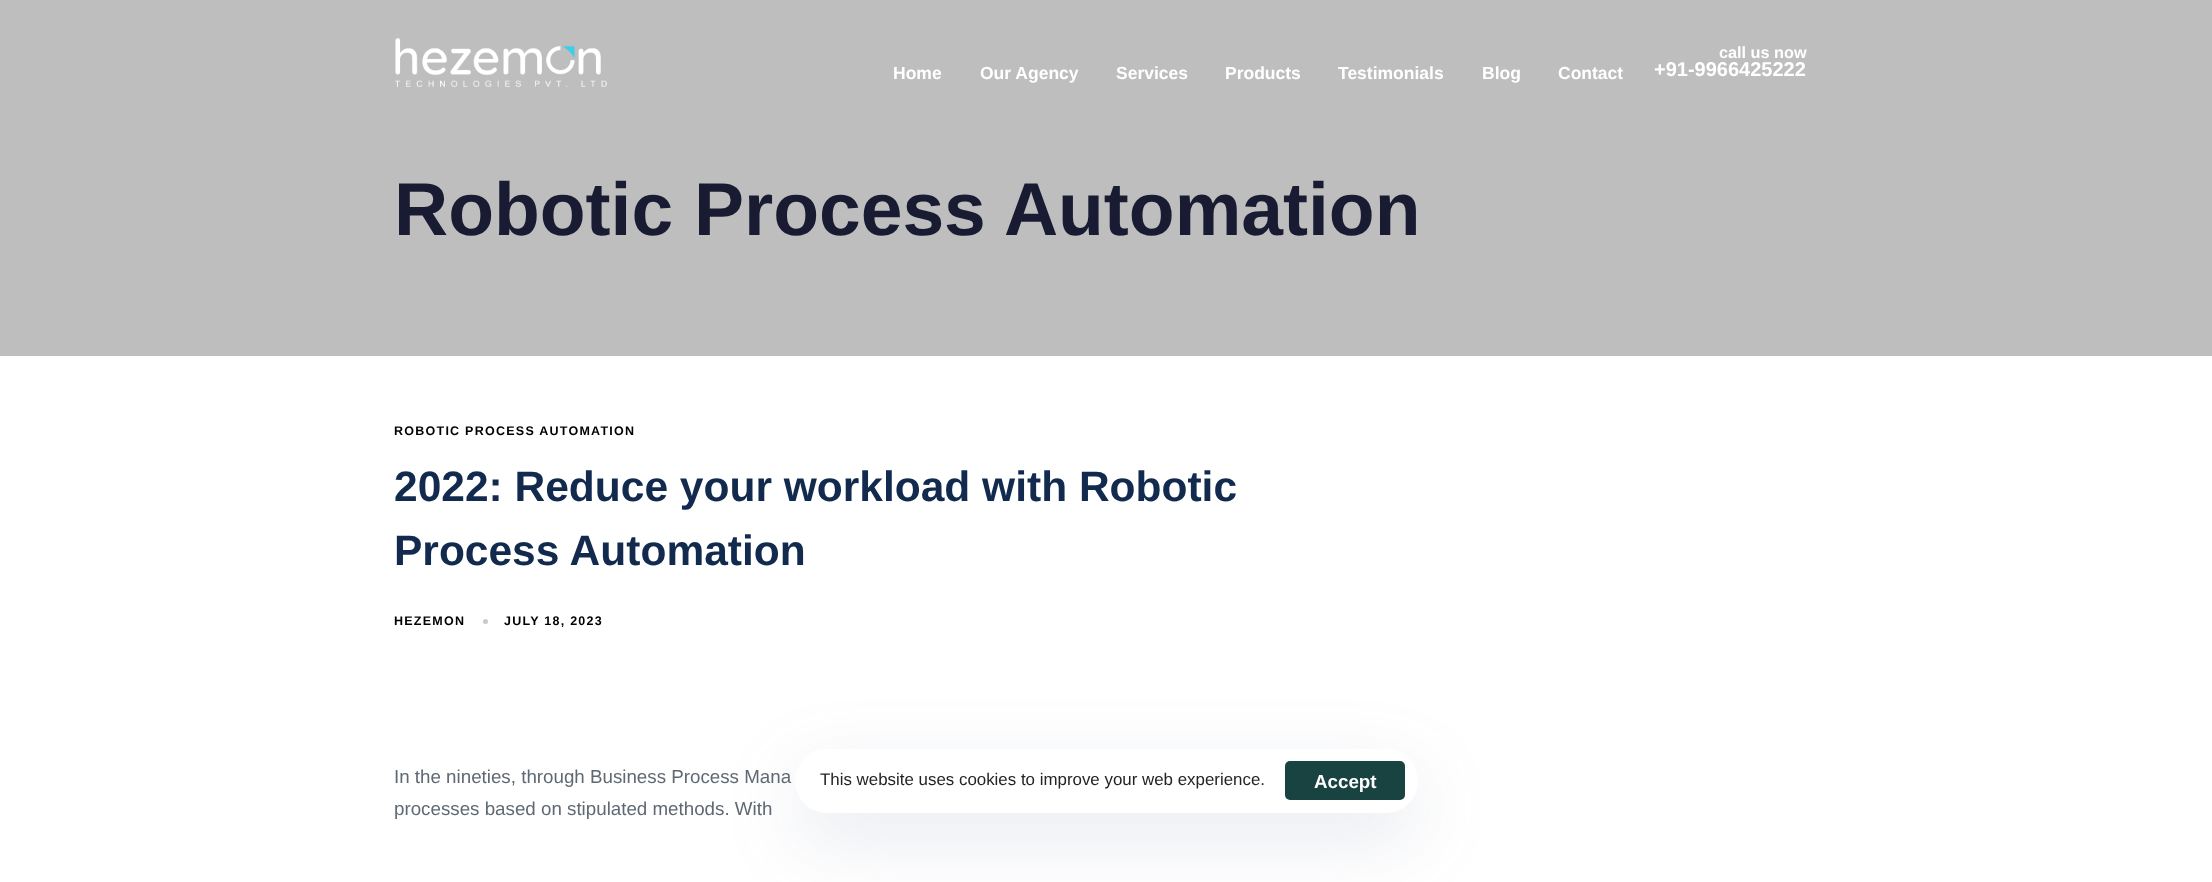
<?xml version="1.0" encoding="UTF-8"?>
<svg xmlns="http://www.w3.org/2000/svg" xmlns:xlink="http://www.w3.org/1999/xlink" width="2212" height="882">
  <rect width="100%" height="100%" fill="#ffffff" />
  <rect width="2212" height="356" fill="#bebebe" />
  <image x="395" y="38" width="212" height="49" xlink:href="image1.png" />
  <circle cx="485.5" cy="621.5" r="2.5" fill="#c7cbce" />
  <rect x="795" y="774" width="623" height="64" rx="32" fill="#5c6b95" fill-opacity="0.15" filter="blur(37.5px)" />
  <rect x="795" y="749" width="623" height="64" rx="32" fill="#ffffff" />
  <rect x="1285" y="761" width="120" height="39" rx="5" fill="#184341" />
  <text x="893" y="79" style="font-family: Liberation Sans; font-size: 17.5px; font-weight: bold; fill: #ffffff">Home</text>
  <text x="980" y="79" style="font-family: Liberation Sans; font-size: 17.5px; font-weight: bold; fill: #ffffff">Our Agency</text>
  <text x="1116" y="79" style="font-family: Liberation Sans; font-size: 17.5px; font-weight: bold; fill: #ffffff">Services</text>
  <text x="1225" y="79" style="font-family: Liberation Sans; font-size: 17.5px; font-weight: bold; fill: #ffffff">Products</text>
  <text x="1338" y="79" style="font-family: Liberation Sans; font-size: 17.5px; font-weight: bold; fill: #ffffff">Testimonials</text>
  <text x="1482" y="79" style="font-family: Liberation Sans; font-size: 17.5px; font-weight: bold; fill: #ffffff">Blog</text>
  <text x="1558" y="79" style="font-family: Liberation Sans; font-size: 17.5px; font-weight: bold; fill: #ffffff">Contact</text>
  <text x="1719" y="58" style="font-family: Liberation Sans; font-size: 16.25px; font-weight: bold; fill: #ffffff">call us now</text>
  <text x="1654" y="76" style="font-family: Liberation Sans; font-size: 20px; font-weight: bold; fill: #ffffff">+91-9966425222</text>
  <text x="394" y="235" style="font-family: Liberation Sans; font-size: 75px; font-weight: bold; fill: #181b31">Robotic Process Automation</text>
  <text x="394" y="435" style="font-family: Liberation Sans; font-size: 12.5px; font-weight: bold; letter-spacing: 1.25px; fill: #000000">ROBOTIC PROCESS AUTOMATION</text>
  <text x="394" y="501" style="font-family: Liberation Sans; font-size: 42.5px; font-weight: bold; fill: #122a4d">2022: Reduce your workload with Robotic</text>
  <text x="394" y="565" style="font-family: Liberation Sans; font-size: 42.5px; font-weight: bold; fill: #122a4d">Process Automation</text>
  <text x="394" y="625" style="font-family: Liberation Sans; font-size: 12.5px; font-weight: bold; letter-spacing: 1.25px; fill: #000000">HEZEMON</text>
  <text x="504" y="625" style="font-family: Liberation Sans; font-size: 12.5px; font-weight: bold; letter-spacing: 1.25px; fill: #000000">JULY 18, 2023</text>
  <text x="394" y="783" style="font-family: Liberation Sans; font-size: 18.75px; fill: #5f6973">In the nineties, through Business Process Mana</text>
  <text x="394" y="815" style="font-family: Liberation Sans; font-size: 18.75px; fill: #5f6973">processes based on stipulated methods. With</text>
  <text x="820" y="785" style="font-family: Liberation Sans; font-size: 16.9px; fill: #242424">This website uses cookies to improve your web experience.</text>
  <text x="1314" y="788" style="font-family: Liberation Sans; font-size: 18.75px; font-weight: bold; fill: #ffffff">Accept</text>
</svg>
